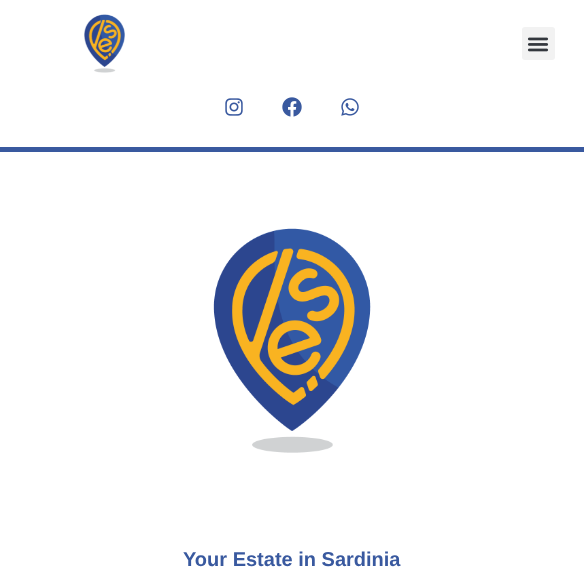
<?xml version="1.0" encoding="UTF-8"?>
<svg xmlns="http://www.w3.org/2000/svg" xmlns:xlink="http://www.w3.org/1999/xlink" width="584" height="583">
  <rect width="100%" height="100%" fill="#ffffff" />
  <image x="84" y="14" width="41" height="59" xlink:href="image1.png" />
  <rect x="522" y="27" width="33" height="33" rx="3" fill="#f2f2f2" />
  <image x="527" y="37" width="22" height="15" xlink:href="image2.png" />
  <image x="225" y="98" width="18" height="18" xlink:href="image3.png" />
  <image x="282" y="97" width="20" height="20" xlink:href="image4.png" />
  <image x="341" y="98" width="18" height="18" xlink:href="image5.png" />
  <rect y="147" width="584" height="5" fill="#39599f" />
  <image x="213" y="228" width="158" height="225" xlink:href="image6.png" />
  <text x="183" y="566" style="font-family: Liberation Sans; font-size: 20px; font-weight: bold; fill: #39599f">Your Estate in Sardinia</text>
</svg>
